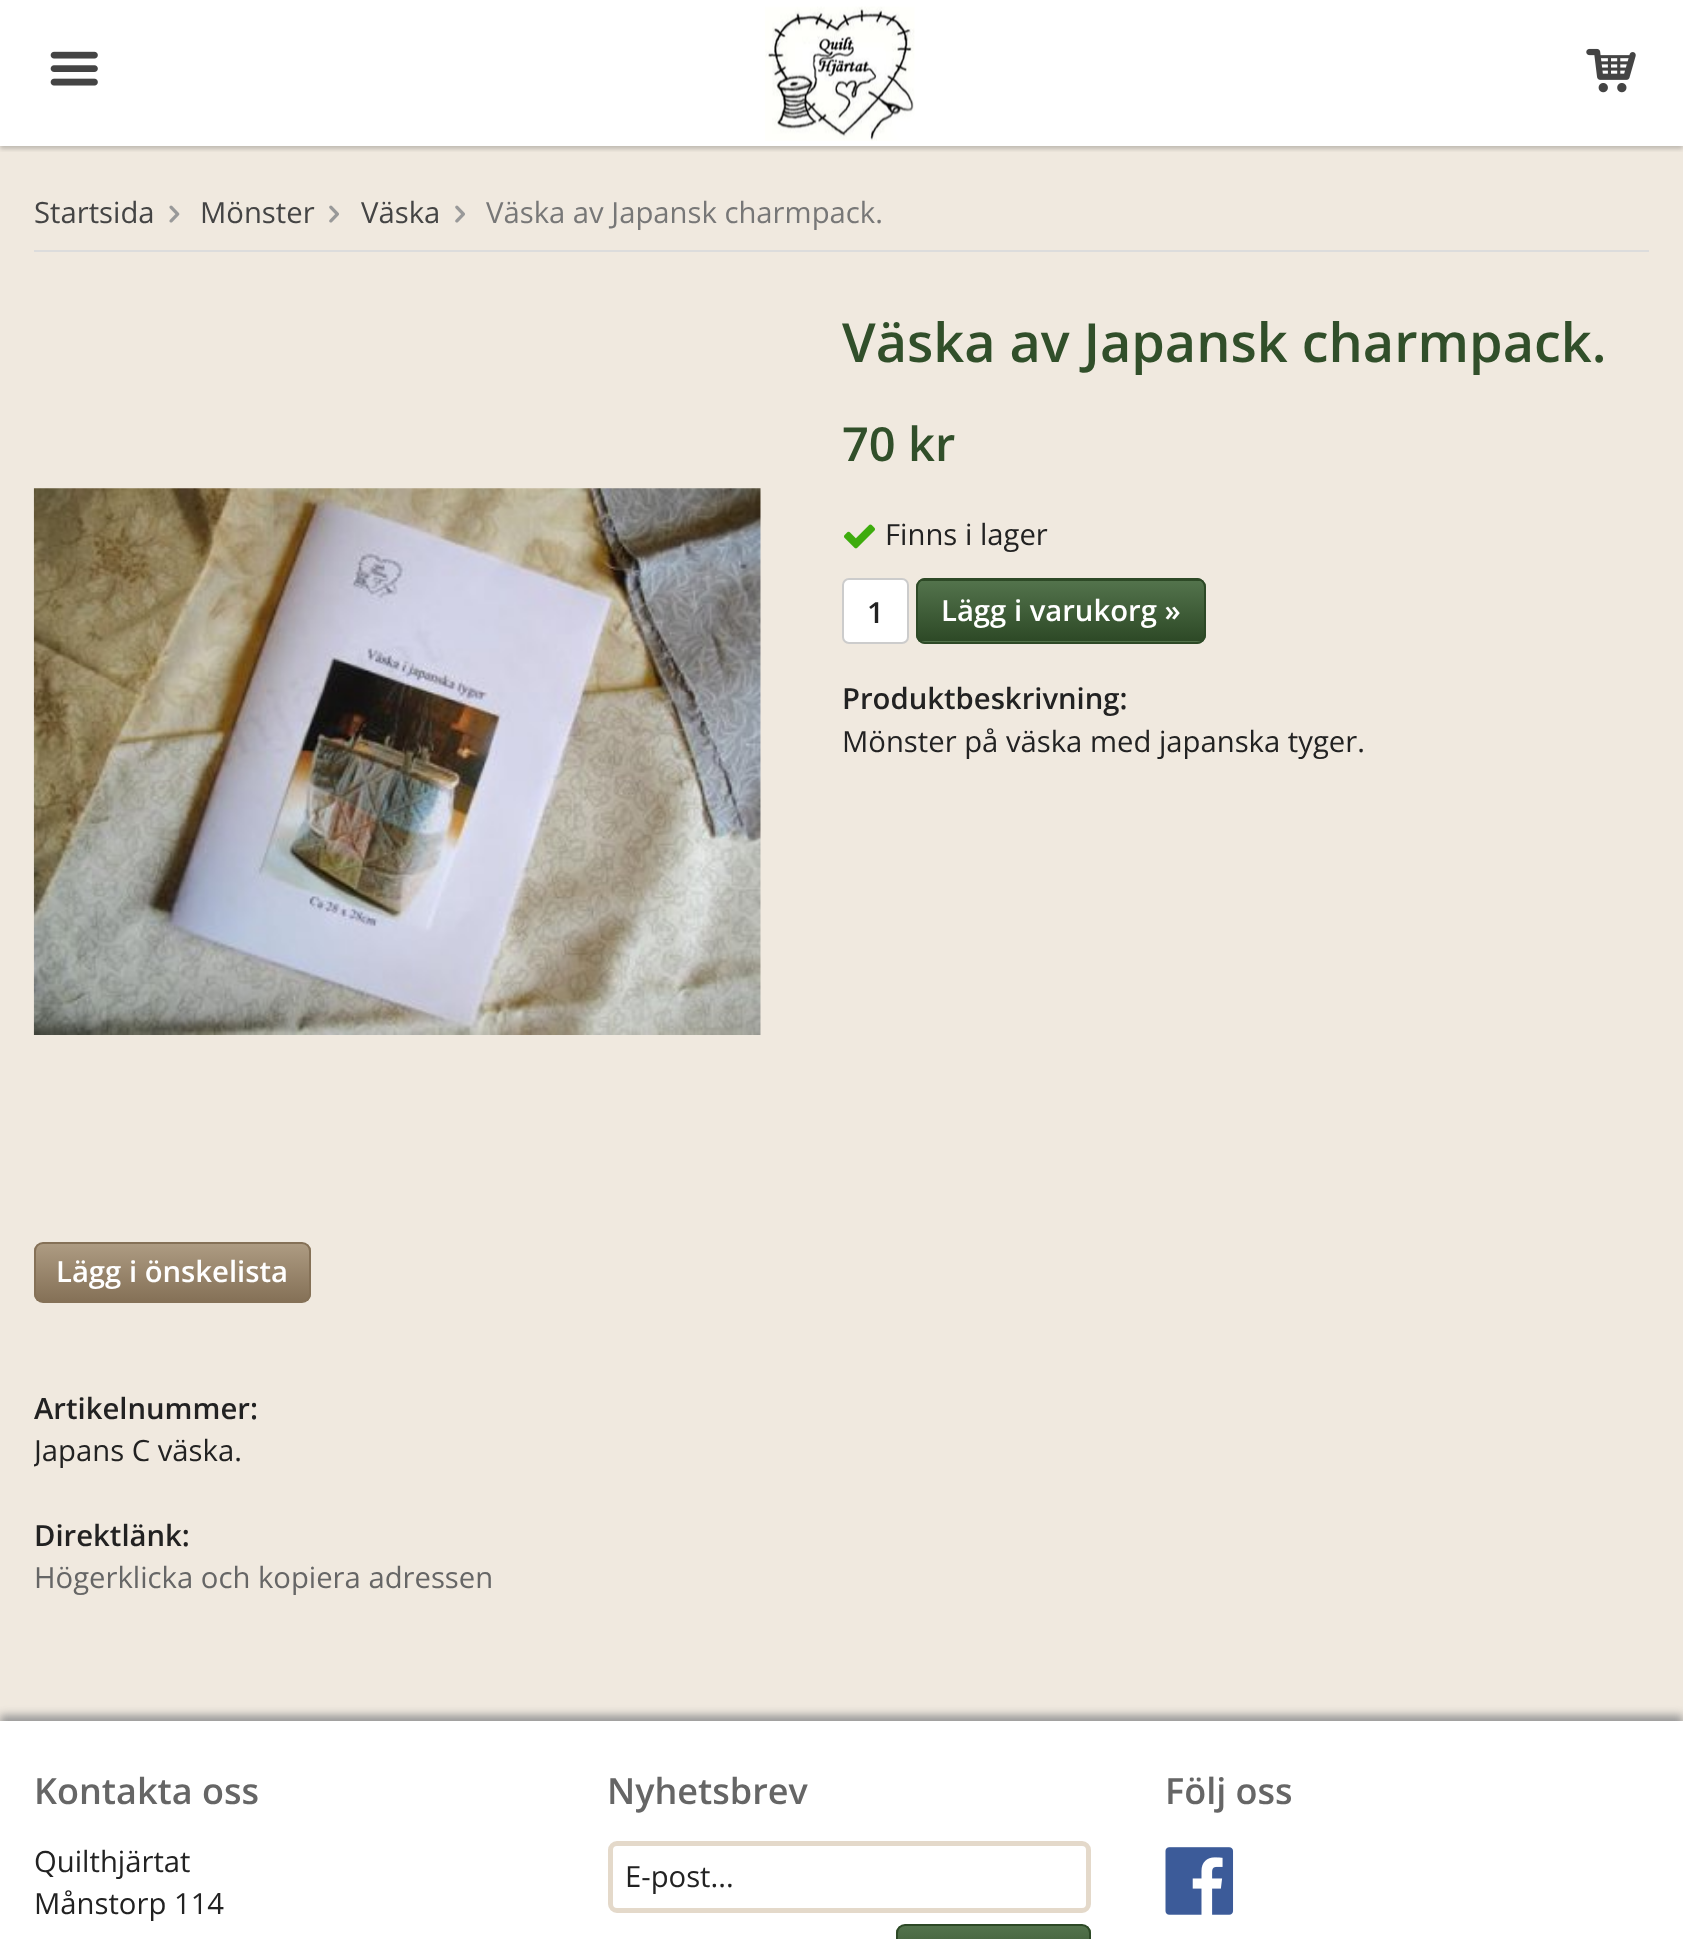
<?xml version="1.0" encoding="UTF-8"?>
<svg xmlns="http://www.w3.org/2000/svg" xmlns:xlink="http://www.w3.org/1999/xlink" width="1683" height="1939">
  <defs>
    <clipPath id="clip1"><rect x="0" y="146" width="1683" height="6" /></clipPath>
    <clipPath id="clip2"><rect x="916" y="578" width="290" height="66" rx="9" /></clipPath>
    <linearGradient id="g1" gradientUnits="userSpaceOnUse" x1="1061" y1="520" x2="1061" y2="581"><stop offset="0" stop-color="#53734c" /><stop offset="1" stop-color="#2d4926" /></linearGradient>
    <linearGradient id="g2" gradientUnits="userSpaceOnUse" x1="1061" y1="581" x2="1061" y2="641"><stop offset="0" stop-color="#53734c" /><stop offset="1" stop-color="#2d4926" /></linearGradient>
    <linearGradient id="g3" gradientUnits="userSpaceOnUse" x1="1061" y1="641" x2="1061" y2="702"><stop offset="0" stop-color="#53734c" /><stop offset="1" stop-color="#2d4926" /></linearGradient>
    <clipPath id="clip3"><rect x="34" y="1242" width="277" height="61" rx="9" /></clipPath>
    <linearGradient id="g4" gradientUnits="userSpaceOnUse" x1="172" y1="1244" x2="172" y2="1301"><stop offset="0" stop-color="#ad9b82" /><stop offset="1" stop-color="#857157" /></linearGradient>
    <clipPath id="clip4"><path d="M 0 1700 h 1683 v 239 h -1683 z m 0 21 h 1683 v 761 h -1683 z" clip-rule="evenodd" /></clipPath>
    <clipPath id="clip5"><rect x="896" y="1924" width="195" height="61" rx="9" /></clipPath>
    <linearGradient id="g5" gradientUnits="userSpaceOnUse" x1="993" y1="1926" x2="993" y2="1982"><stop offset="0" stop-color="#53734c" /><stop offset="1" stop-color="#2d4926" /></linearGradient>
    <clipPath id="clip6"><rect x="34" y="308" width="1615" height="1335" /></clipPath>
  </defs>
  <rect width="100%" height="100%" fill="#ffffff" />
  <rect y="146" width="1683" height="1575" fill="#f0e9df" />
  <g clip-path="url(#clip1)">
    <rect y="2" width="1683" height="147" fill="#000000" fill-opacity="0.2" filter="blur(2px)" />
  </g>
  <image x="50" y="51" width="48" height="35" xlink:href="image1.png" />
  <image x="765" y="6" width="150" height="135" xlink:href="image2.png" />
  <image x="1586" y="48" width="50" height="45" xlink:href="image3.png" />
  <rect x="34" y="250" width="1615" height="2" fill="#dcdcdc" />
  <image x="169" y="205" width="11" height="18" xlink:href="image4.png" />
  <image x="329" y="205" width="10" height="18" xlink:href="image5.png" />
  <image x="455" y="205" width="10" height="18" xlink:href="image5.png" />
  <image x="33" y="488" width="728" height="547" xlink:href="image6.png" />
  <image x="844" y="524" width="31" height="25" xlink:href="image7.png" />
  <rect x="843" y="579" width="65" height="64" rx="6" fill="#ffffff" stroke="#cccccc" stroke-width="2" />
  <g clip-path="url(#clip2)">
    <rect x="916" y="578" width="290" height="3" fill="url(#g1)" />
    <rect x="916" y="581" width="290" height="60" fill="url(#g2)" />
    <rect x="916" y="641" width="290" height="3" fill="url(#g3)" />
  </g>
  <rect x="917" y="579" width="288" height="64" rx="8" fill="none" stroke="#2d4926" stroke-width="2" />
  <g clip-path="url(#clip3)">
    <rect x="34" y="1244" width="277" height="57" fill="url(#g4)" />
  </g>
  <rect x="35" y="1243" width="275" height="59" rx="8" fill="none" stroke="#857157" stroke-width="2" />
  <g clip-path="url(#clip4)">
    <rect y="1715" width="1683" height="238" fill="#999999" filter="blur(4.5px)" />
  </g>
  <rect x="610.5" y="1843.5" width="478" height="67" rx="6.5" fill="none" stroke="#e4d9ca" stroke-width="5" />
  <g clip-path="url(#clip5)">
    <rect x="896" y="1926" width="195" height="13" fill="url(#g5)" />
  </g>
  <rect x="897" y="1925" width="193" height="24" rx="8" fill="none" stroke="#2d4926" stroke-width="2" />
  <image x="1165" y="1847" width="69" height="68" xlink:href="image8.png" />
  <text x="34" y="223" style="font-family: Open Sans; font-size: 29.25px; fill: #444444">Startsida</text>
  <text x="200" y="223" style="font-family: Open Sans; font-size: 29.25px; fill: #444444">Mönster</text>
  <text x="361" y="223" style="font-family: Open Sans; font-size: 29.25px; fill: #444444">Väska</text>
  <text x="486" y="223" style="font-family: Open Sans; font-size: 29.25px; fill: #777777">Väska av Japansk charmpack.</text>
  <text x="842" y="362" style="font-family: Open Sans; font-size: 54px; font-weight: 600; fill: #314f2a">Väska av Japansk charmpack.</text>
  <text x="842" y="461" style="font-family: Open Sans; font-size: 47px; font-weight: 600; fill: #314f2a">70 kr</text>
  <text x="885" y="545" style="font-family: Open Sans; font-size: 29.25px; fill: #222222">Finns i lager</text>
  <text x="867" y="623" style="font-family: Open Sans; font-size: 29.25px; font-weight: 600; fill: #222222">1</text>
  <text x="941" y="621" style="font-family: Open Sans; font-size: 29.25px; font-weight: 600; fill: #ffffff">Lägg i varukorg »</text>
  <text x="842" y="709" style="font-family: Open Sans; font-size: 29.25px; font-weight: 600; fill: #222222">Produktbeskrivning:</text>
  <text x="842" y="752" style="font-family: Open Sans; font-size: 29.25px; fill: #222222">Mönster på väska med japanska tyger.</text>
  <text x="56" y="1282" style="font-family: Open Sans; font-size: 29.25px; font-weight: 600; fill: #ffffff">Lägg i önskelista</text>
  <text x="34" y="1419" style="font-family: Open Sans; font-size: 29.25px; font-weight: 600; fill: #222222">Artikelnummer:</text>
  <g clip-path="url(#clip6)">
    <text x="34" y="1461" style="font-family: Open Sans; font-size: 29.25px; fill: #222222">Japans C väska.</text>
  </g>
  <text x="34" y="1546" style="font-family: Open Sans; font-size: 29.25px; font-weight: 600; fill: #222222">Direktlänk:</text>
  <text x="34" y="1588" style="font-family: Open Sans; font-size: 29.25px; fill: #666666">Högerklicka och kopiera adressen</text>
  <text x="34" y="1804" style="font-family: Open Sans; font-size: 36px; font-weight: 600; fill: #666666">Kontakta oss</text>
  <text x="34" y="1872" style="font-family: Open Sans; font-size: 29.25px; fill: #222222">Quilthjärtat</text>
  <text x="34" y="1914" style="font-family: Open Sans; font-size: 29.25px; fill: #222222">Månstorp 114</text>
  <text x="607" y="1804" style="font-family: Open Sans; font-size: 36px; font-weight: 600; fill: #666666">Nyhetsbrev</text>
  <text x="625" y="1887" style="font-family: Open Sans; font-size: 29.25px; fill: #222222">E-post...</text>
  <text x="1165" y="1804" style="font-family: Open Sans; font-size: 36px; font-weight: 600; fill: #666666">Följ oss</text>
</svg>
